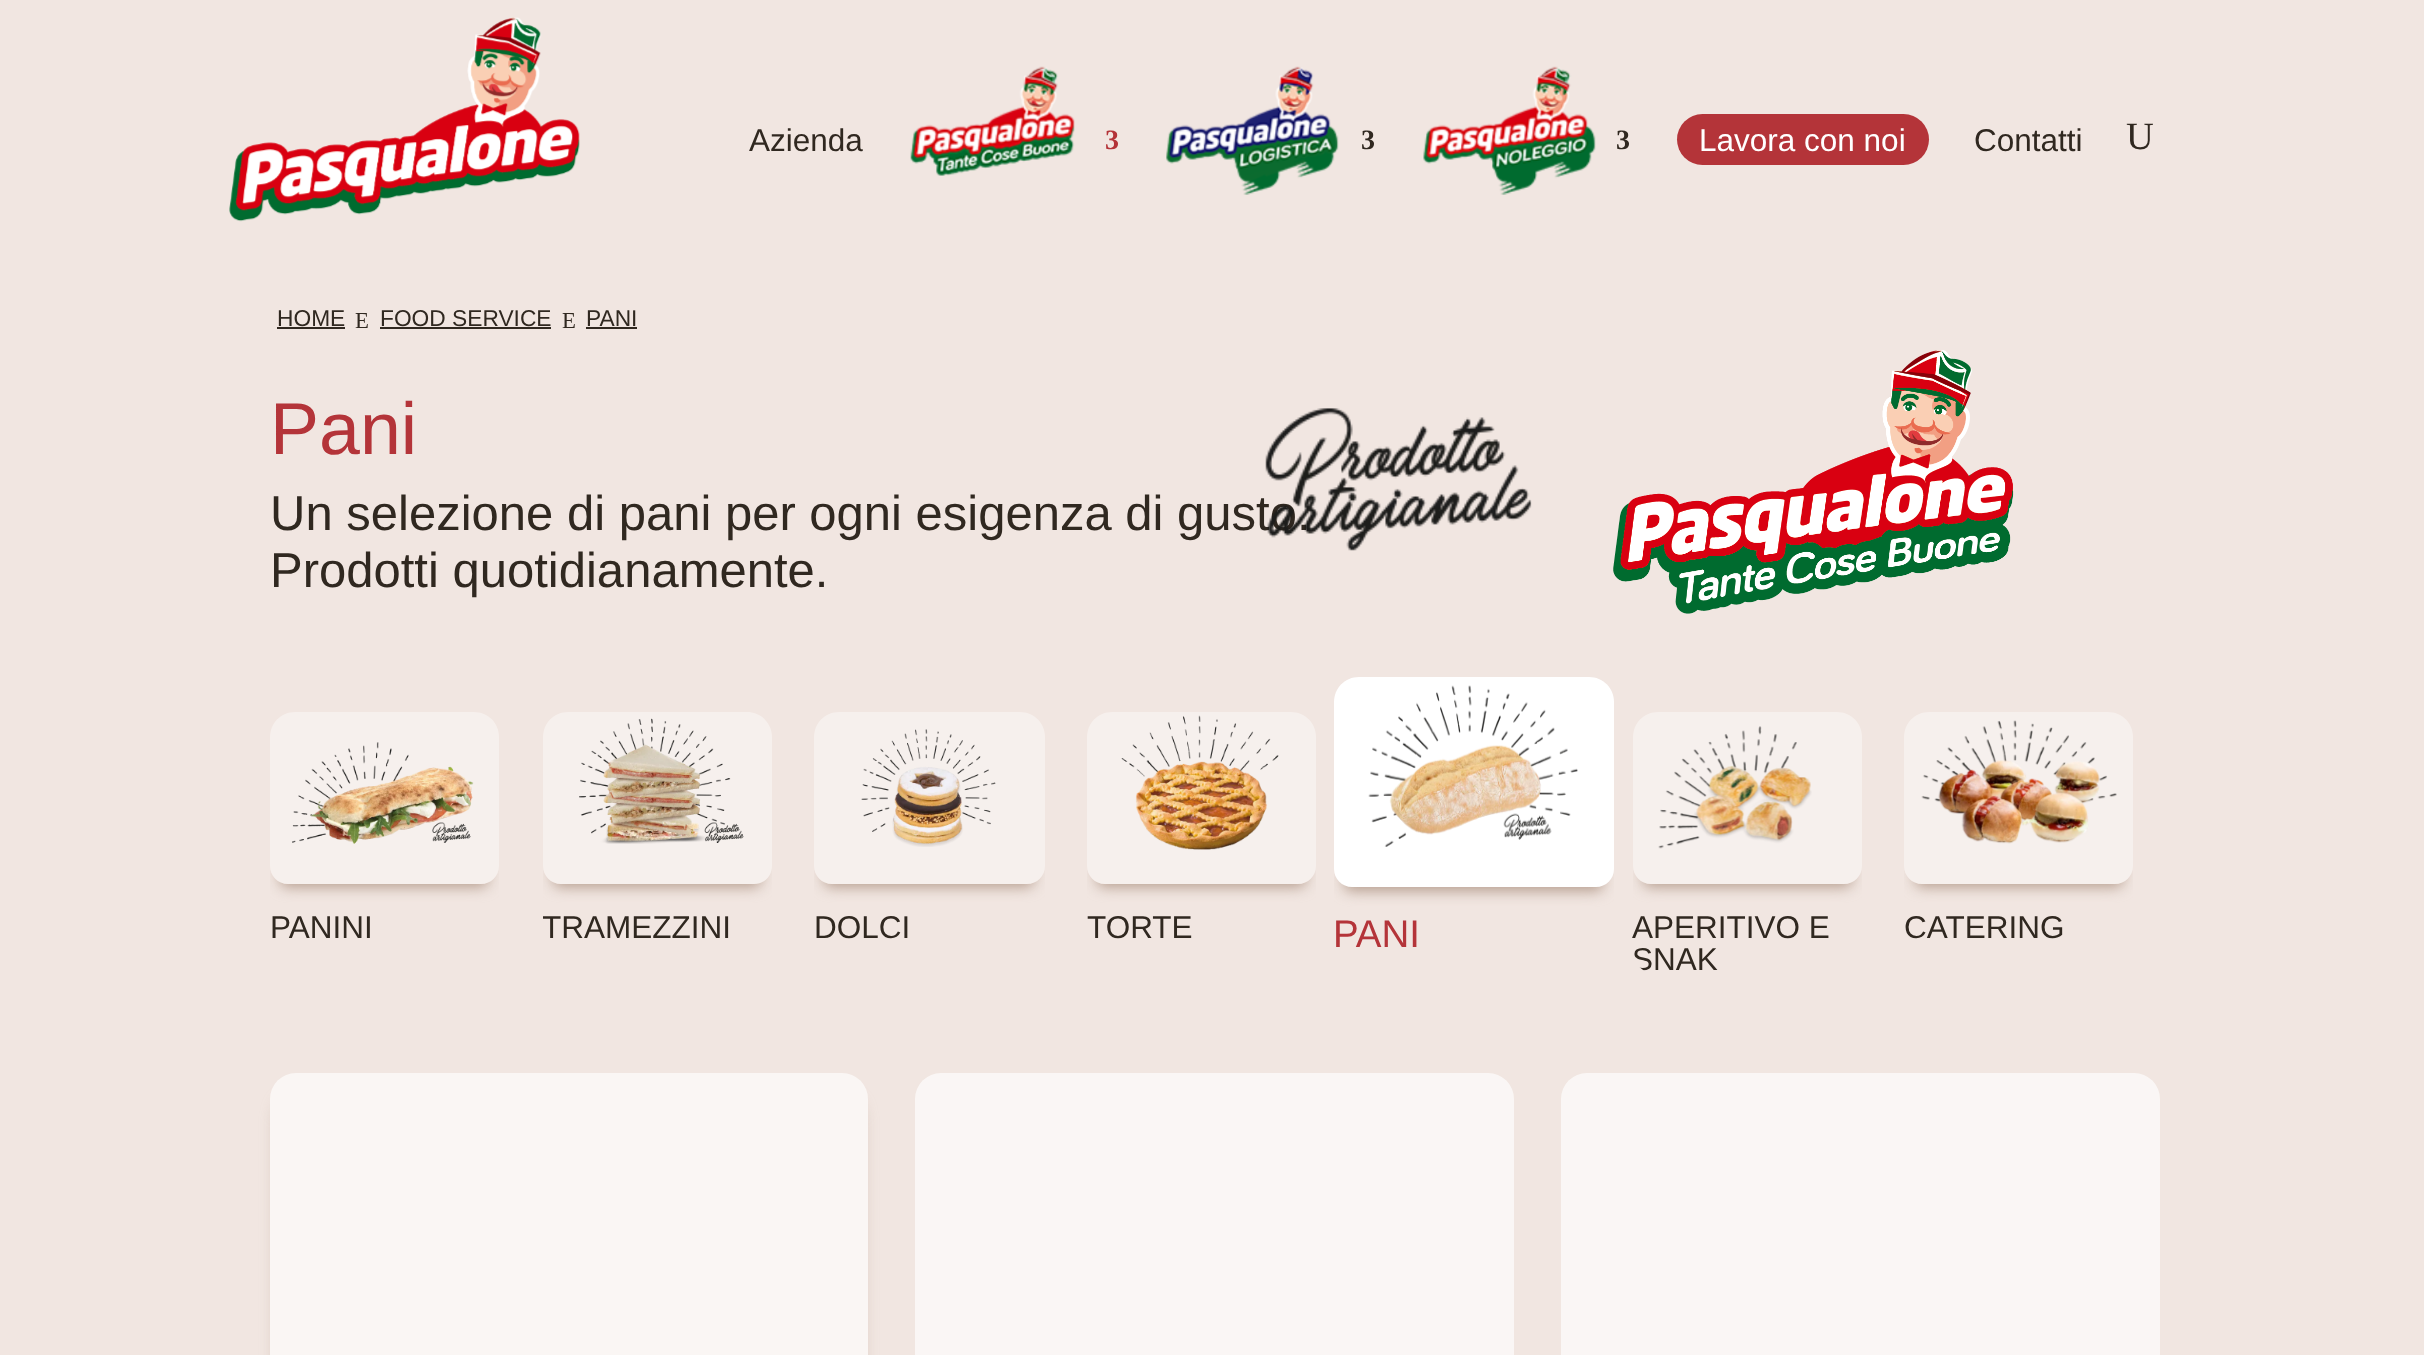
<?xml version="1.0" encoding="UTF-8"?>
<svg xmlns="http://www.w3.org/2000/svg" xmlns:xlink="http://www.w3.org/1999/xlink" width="2424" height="1355">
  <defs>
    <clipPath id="clip1"><rect x="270" y="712" width="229" height="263" rx="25" /></clipPath>
    <clipPath id="clip2"><path d="M 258 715 h 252 v 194 h -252 z m 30 -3 h 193 c 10 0 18 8 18 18 v 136 c 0 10 -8 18 -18 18 h -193 c -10 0 -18 -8 -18 -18 v -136 c 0 -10 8 -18 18 -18 z" clip-rule="evenodd" /></clipPath>
    <clipPath id="clip3"><rect x="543" y="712" width="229" height="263" rx="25" /></clipPath>
    <clipPath id="clip4"><path d="M 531 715 h 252 v 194 h -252 z m 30 -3 h 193 c 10 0 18 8 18 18 v 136 c 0 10 -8 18 -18 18 h -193 c -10 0 -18 -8 -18 -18 v -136 c 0 -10 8 -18 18 -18 z" clip-rule="evenodd" /></clipPath>
    <clipPath id="clip5"><rect x="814" y="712" width="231" height="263" rx="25" /></clipPath>
    <clipPath id="clip6"><path d="M 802 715 h 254 v 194 h -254 z m 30 -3 h 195 c 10 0 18 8 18 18 v 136 c 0 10 -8 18 -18 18 h -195 c -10 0 -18 -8 -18 -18 v -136 c 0 -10 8 -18 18 -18 z" clip-rule="evenodd" /></clipPath>
    <clipPath id="clip7"><rect x="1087" y="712" width="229" height="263" rx="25" /></clipPath>
    <clipPath id="clip8"><path d="M 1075 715 h 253 v 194 h -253 z m 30 -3 h 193 c 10 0 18 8 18 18 v 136 c 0 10 -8 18 -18 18 h -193 c -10 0 -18 -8 -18 -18 v -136 c 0 -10 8 -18 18 -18 z" clip-rule="evenodd" /></clipPath>
    <clipPath id="clip9"><rect x="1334" y="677" width="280" height="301" rx="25" /></clipPath>
    <clipPath id="clip10"><rect x="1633" y="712" width="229" height="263" rx="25" /></clipPath>
    <clipPath id="clip11"><path d="M 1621 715 h 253 v 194 h -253 z m 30 -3 h 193 c 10 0 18 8 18 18 v 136 c 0 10 -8 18 -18 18 h -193 c -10 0 -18 -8 -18 -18 v -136 c 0 -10 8 -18 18 -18 z" clip-rule="evenodd" /></clipPath>
    <clipPath id="clip12"><rect x="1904" y="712" width="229" height="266" rx="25" /></clipPath>
    <clipPath id="clip13"><path d="M 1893 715 h 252 v 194 h -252 z m 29 -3 h 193 c 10 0 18 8 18 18 v 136 c 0 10 -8 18 -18 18 h -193 c -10 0 -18 -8 -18 -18 v -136 c 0 -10 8 -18 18 -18 z" clip-rule="evenodd" /></clipPath>
    <clipPath id="clip14"><rect x="543" y="712" width="229" height="263" rx="25" /></clipPath>
    <clipPath id="clip15"><rect x="1633" y="712" width="229" height="263" rx="25" /></clipPath>
  </defs>
  <rect width="100%" height="100%" fill="#f1e6e1" />
  <image x="229" y="17" width="351" height="205" xlink:href="image1.png" />
  <image x="910" y="66" width="165" height="110" xlink:href="image2.png" />
  <image x="1166" y="66" width="173" height="129" xlink:href="image3.png" />
  <image x="1423" y="66" width="173" height="129" xlink:href="image4.png" />
  <rect x="1677" y="114" width="252" height="51" rx="25.5" fill="#b43439" />
  <rect x="277" y="327" width="68" height="2" fill="#302820" />
  <rect x="380" y="327" width="171" height="2" fill="#302820" />
  <rect x="586" y="327" width="51" height="2" fill="#302820" />
  <image x="1613" y="350" width="401" height="264" xlink:href="image6.png" />
  <g clip-path="url(#clip1)">
    <g clip-path="url(#clip2)">
      <rect x="280" y="737" width="208" height="150" rx="7" fill="#b59d8e" filter="blur(7px)" />
    </g>
  </g>
  <path d="M 295 712 h 179 c 14 0 25 11 25 25 v 129 c 0 10 -8 18 -18 18 h -193 c -10 0 -18 -8 -18 -18 v -129 c 0 -14 11 -25 25 -25 z" fill="#ffffff" fill-opacity="0.4" />
  <image x="292" y="742" width="182" height="102" xlink:href="image7.png" />
  <g clip-path="url(#clip3)">
    <g clip-path="url(#clip4)">
      <rect x="553" y="737" width="208" height="150" rx="7" fill="#b59d8e" filter="blur(7px)" />
    </g>
  </g>
  <path d="M 568 712 h 179 c 14 0 25 11 25 25 v 129 c 0 10 -8 18 -18 18 h -193 c -10 0 -18 -8 -18 -18 v -129 c 0 -14 11 -25 25 -25 z" fill="#ffffff" fill-opacity="0.4" />
  <image x="579" y="718" width="165" height="126" xlink:href="image8.png" />
  <g clip-path="url(#clip5)">
    <g clip-path="url(#clip6)">
      <rect x="824" y="737" width="210" height="150" rx="7" fill="#b59d8e" filter="blur(7px)" />
    </g>
  </g>
  <path d="M 839 712 h 181 c 14 0 25 11 25 25 v 129 c 0 10 -8 18 -18 18 h -195 c -10 0 -18 -8 -18 -18 v -129 c 0 -14 11 -25 25 -25 z" fill="#ffffff" fill-opacity="0.4" />
  <image x="861" y="729" width="135" height="118" xlink:href="image9.png" />
  <g clip-path="url(#clip7)">
    <g clip-path="url(#clip8)">
      <rect x="1097" y="737" width="209" height="150" rx="7" fill="#b59d8e" filter="blur(7px)" />
    </g>
  </g>
  <path d="M 1112 712 h 179 c 14 0 25 11 25 25 v 129 c 0 10 -8 18 -18 18 h -193 c -10 0 -18 -8 -18 -18 v -129 c 0 -14 11 -25 25 -25 z" fill="#ffffff" fill-opacity="0.4" />
  <image x="1121" y="715" width="158" height="135" xlink:href="image10.png" />
  <g clip-path="url(#clip9)">
    <rect x="1344" y="702" width="259" height="189" rx="7" fill="#b59d8e" filter="blur(7px)" />
  </g>
  <path d="M 1359 677 h 230 c 14 0 25 11 25 25 v 167 c 0 10 -8 18 -18 18 h -244 c -10 0 -18 -8 -18 -18 v -167 c 0 -14 11 -25 25 -25 z" fill="#ffffff" />
  <image x="1368" y="685" width="210" height="162" xlink:href="image11.png" />
  <g clip-path="url(#clip10)">
    <g clip-path="url(#clip11)">
      <rect x="1643" y="737" width="209" height="150" rx="7" fill="#b59d8e" filter="blur(7px)" />
    </g>
  </g>
  <path d="M 1658 712 h 179 c 14 0 25 11 25 25 v 129 c 0 10 -8 18 -18 18 h -193 c -10 0 -18 -8 -18 -18 v -129 c 0 -14 11 -25 25 -25 z" fill="#ffffff" fill-opacity="0.4" />
  <image x="1658" y="726" width="154" height="123" xlink:href="image12.png" />
  <g clip-path="url(#clip12)">
    <g clip-path="url(#clip13)">
      <rect x="1915" y="737" width="208" height="150" rx="7" fill="#b59d8e" filter="blur(7px)" />
    </g>
  </g>
  <path d="M 1929 712 h 179 c 14 0 25 11 25 25 v 129 c 0 10 -8 18 -18 18 h -193 c -10 0 -18 -8 -18 -18 v -129 c 0 -14 11 -25 25 -25 z" fill="#ffffff" fill-opacity="0.4" />
  <image x="1921" y="720" width="196" height="124" xlink:href="image13.png" />
  <rect x="280" y="1101" width="578" height="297" rx="16" fill="#b59d8e" filter="blur(9px)" />
  <rect x="270" y="1073" width="598" height="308" rx="26" fill="#faf6f4" />
  <rect x="915" y="1073" width="599" height="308" rx="26" fill="#ffffff" fill-opacity="0.65" />
  <rect x="1561" y="1073" width="599" height="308" rx="26" fill="#ffffff" fill-opacity="0.65" />
  <text x="749" y="151" style="font-family: Liberation Sans; font-size: 31.5px; fill: #302820">Azienda</text>
  <text x="1105" y="149" style="font-family: Liberation Serif; font-size: 28px; font-weight: bold; fill: #b43439">3</text>
  <text x="1361" y="149" style="font-family: Liberation Serif; font-size: 28px; font-weight: bold; fill: #302820">3</text>
  <text x="1616" y="149" style="font-family: Liberation Serif; font-size: 28px; font-weight: bold; fill: #302820">3</text>
  <text x="1699" y="151" style="font-family: Liberation Sans; font-size: 31.5px; fill: #ffffff">Lavora con noi</text>
  <text x="1974" y="151" style="font-family: Liberation Sans; font-size: 31.5px; fill: #302820">Contatti</text>
  <text x="2126" y="149" style="font-family: Liberation Serif; font-size: 38.5px; fill: #302820">U</text>
  <text x="277" y="326" style="font-family: Liberation Sans; font-size: 22.75px; fill: #302820">HOME</text>
  <text x="355" y="328" style="font-family: Liberation Serif; font-size: 22.75px; fill: #302820">E</text>
  <text x="380" y="326" style="font-family: Liberation Sans; font-size: 22.75px; fill: #302820">FOOD SERVICE</text>
  <text x="562" y="328" style="font-family: Liberation Serif; font-size: 22.75px; fill: #302820">E</text>
  <text x="586" y="326" style="font-family: Liberation Sans; font-size: 22.75px; fill: #302820">PANI</text>
  <text x="270" y="454" style="font-family: Liberation Sans; font-size: 73.5px; fill: #b43439">Pani</text>
  <text x="270" y="530" style="font-family: Liberation Sans; font-size: 49px; fill: #302820">Un selezione di pani per ogni esigenza di gusto.</text>
  <text x="270" y="587" style="font-family: Liberation Sans; font-size: 49px; fill: #302820">Prodotti quotidianamente.</text>
  <image x="1265" y="408" width="267" height="143" xlink:href="image5.png" />
  <text x="270" y="938" style="font-family: Liberation Sans; font-size: 31.5px; fill: #302820">PANINI</text>
  <g clip-path="url(#clip14)">
    <text x="542" y="938" style="font-family: Liberation Sans; font-size: 31.5px; fill: #302820">TRAMEZZINI</text>
  </g>
  <text x="814" y="938" style="font-family: Liberation Sans; font-size: 31.5px; fill: #302820">DOLCI</text>
  <text x="1087" y="938" style="font-family: Liberation Sans; font-size: 31.5px; fill: #302820">TORTE</text>
  <text x="1333" y="947" style="font-family: Liberation Sans; font-size: 38.5px; fill: #b43439">PANI</text>
  <text x="1632" y="938" style="font-family: Liberation Sans; font-size: 31.5px; fill: #302820">APERITIVO E</text>
  <g clip-path="url(#clip15)">
    <text x="1632" y="970" style="font-family: Liberation Sans; font-size: 31.5px; fill: #302820">SNAK</text>
  </g>
  <text x="1904" y="938" style="font-family: Liberation Sans; font-size: 31.5px; fill: #302820">CATERING</text>
</svg>
